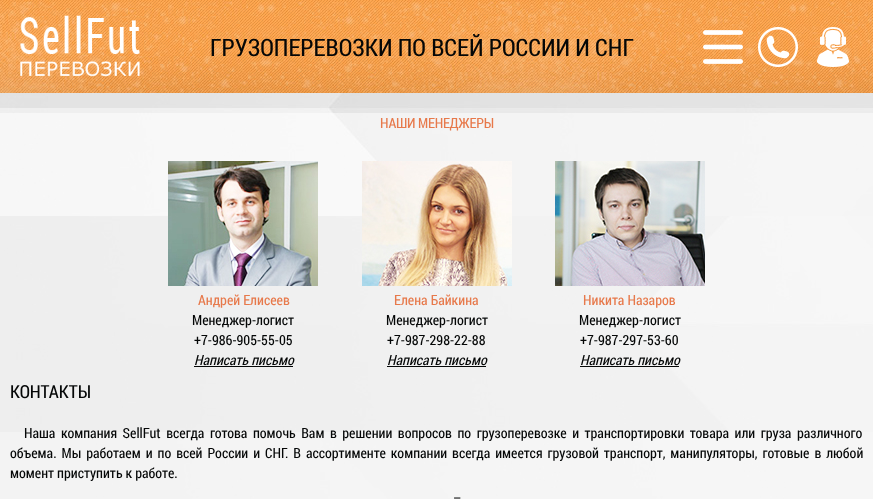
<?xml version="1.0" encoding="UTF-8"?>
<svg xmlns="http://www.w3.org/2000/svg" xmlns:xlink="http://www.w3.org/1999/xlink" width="873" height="499">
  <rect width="100%" height="100%" fill="#ffffff" />
  <image x="0" y="93" width="873" height="406" xlink:href="image1.png" />
  <image x="0" y="0" width="873" height="93" xlink:href="image2.png" />
  <image x="20" y="15" width="120" height="62" xlink:href="image3.png" />
  <image x="703" y="30" width="40" height="34" xlink:href="image4.png" />
  <image x="758" y="27" width="40" height="40" xlink:href="image5.png" />
  <image x="816" y="27" width="34" height="40" xlink:href="image6.png" />
  <rect y="113" width="873" height="386" fill="#ffffff" fill-opacity="0.5" />
  <image x="168" y="161" width="150" height="125" xlink:href="image7.png" />
  <rect x="194" y="366" width="99" height="1" fill="#050707" />
  <image x="362" y="161" width="150" height="125" xlink:href="image8.png" />
  <rect x="387" y="366" width="99" height="1" fill="#050707" />
  <image x="555" y="161" width="150" height="125" xlink:href="image9.png" />
  <rect x="580" y="366" width="99" height="1" fill="#050707" />
  <text x="210" y="56" style="font-family: Roboto Condensed; font-size: 24px; fill: #050707">ГРУЗОПЕРЕВОЗКИ ПО ВСЕЙ РОССИИ И СНГ</text>
  <text x="380" y="128" style="font-family: Roboto Condensed; font-size: 14px; letter-spacing: -0.25px; fill: #e7794b">НАШИ МЕНЕДЖЕРЫ</text>
  <text x="198" y="305" style="font-family: Roboto Condensed; font-size: 14px; fill: #e7794b">Андрей Елисеев</text>
  <text x="192" y="325" style="font-family: Roboto Condensed; font-size: 14px; fill: #050707">Менеджер-логист</text>
  <text x="194" y="345" style="font-family: Roboto Condensed; font-size: 14px; fill: #050707">+7-986-905-55-05</text>
  <text x="194" y="365" style="font-family: Roboto Condensed; font-size: 14px; font-style: italic; fill: #050707">Написать письмо</text>
  <text x="394" y="305" style="font-family: Roboto Condensed; font-size: 14px; fill: #e7794b">Елена Байкина</text>
  <text x="386" y="325" style="font-family: Roboto Condensed; font-size: 14px; fill: #050707">Менеджер-логист</text>
  <text x="387" y="345" style="font-family: Roboto Condensed; font-size: 14px; fill: #050707">+7-987-298-22-88</text>
  <text x="387" y="365" style="font-family: Roboto Condensed; font-size: 14px; font-style: italic; fill: #050707">Написать письмо</text>
  <text x="583" y="305" style="font-family: Roboto Condensed; font-size: 14px; fill: #e7794b">Никита Назаров</text>
  <text x="579" y="325" style="font-family: Roboto Condensed; font-size: 14px; fill: #050707">Менеджер-логист</text>
  <text x="580" y="345" style="font-family: Roboto Condensed; font-size: 14px; fill: #050707">+7-987-297-53-60</text>
  <text x="580" y="365" style="font-family: Roboto Condensed; font-size: 14px; font-style: italic; fill: #050707">Написать письмо</text>
  <text x="10" y="398" style="font-family: Roboto Condensed; font-size: 18px; fill: #050707">КОНТАКТЫ</text>
  <text x="24" y="438" word-spacing="2.5" style="font-family: Roboto Condensed; font-size: 14px; fill: #050707">Наша компания SellFut всегда готова помочь Вам в решении вопросов по грузоперевозке и транспортировки товара или груза различного</text>
  <text x="10" y="458" word-spacing="1.9" style="font-family: Roboto Condensed; font-size: 14px; fill: #050707">объема. Мы работаем и по всей России и СНГ. В ассортименте компании всегда имеется грузовой транспорт, манипуляторы, готовые в любой</text>
  <text x="10" y="478" style="font-family: Roboto Condensed; font-size: 14px; fill: #050707">момент приступить к работе.</text>
  <text x="453" y="503" style="font-family: Roboto Condensed; font-size: 14px; fill: #050707">–</text>
</svg>
